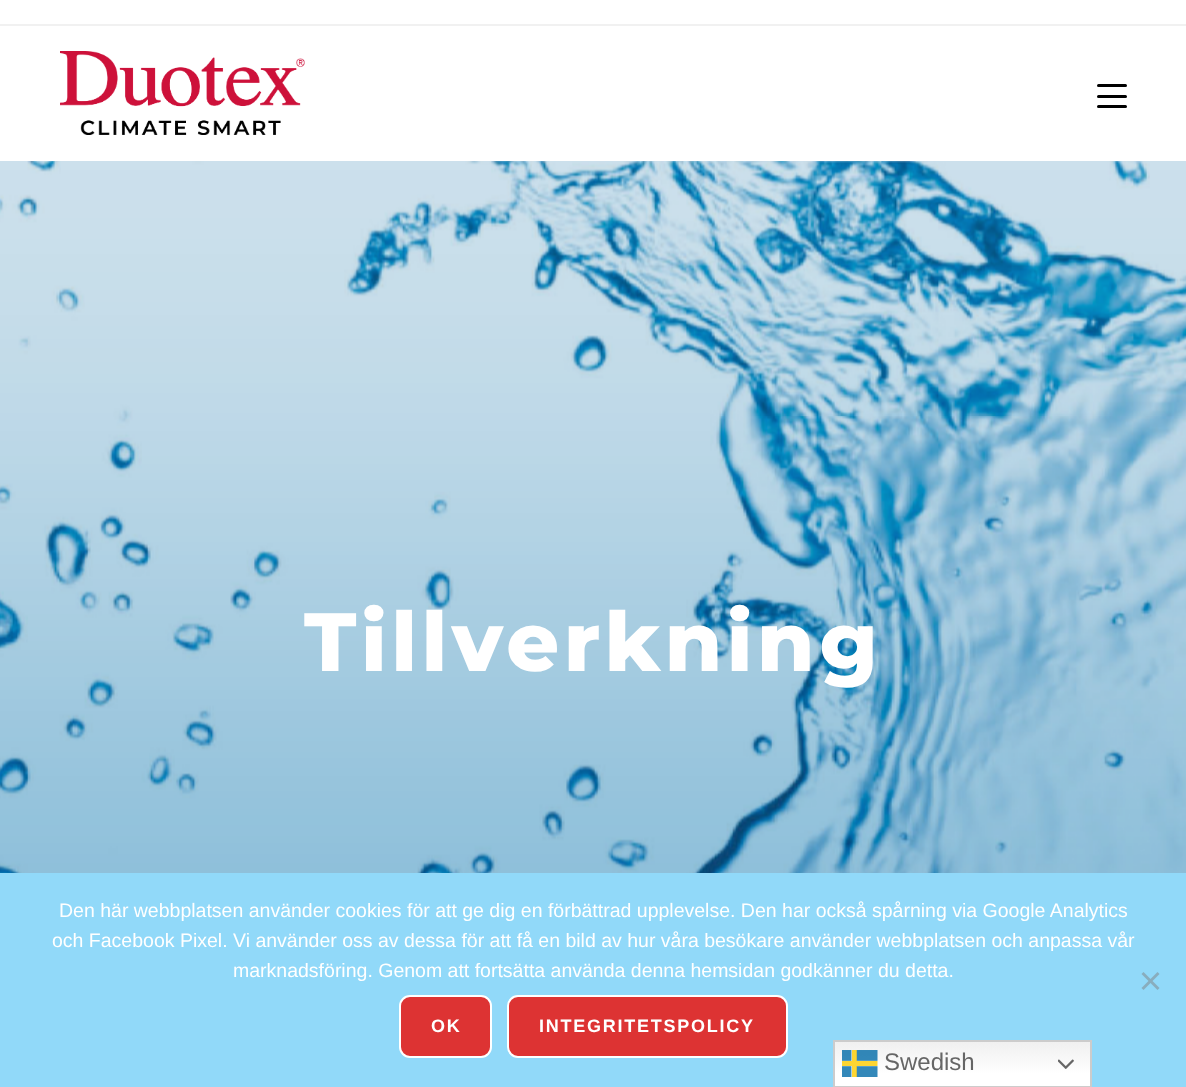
<?xml version="1.0" encoding="UTF-8"?>
<svg xmlns="http://www.w3.org/2000/svg" xmlns:xlink="http://www.w3.org/1999/xlink" width="1186" height="1087">
  <defs>
    <linearGradient id="g1" gradientUnits="userSpaceOnUse" x1="962" y1="1040" x2="962" y2="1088"><stop offset="0" stop-color="#efefef" /><stop offset="0.7" stop-color="#ffffff" /></linearGradient>
  </defs>
  <rect width="100%" height="100%" fill="#ffffff" />
  <rect y="24" width="1186" height="2" fill="#f1f1f1" />
  <image x="60" y="51" width="245" height="84" xlink:href="image1.png" />
  <rect x="1097" y="105" width="30" height="3" rx="1.5" fill="#000000" />
  <rect x="1097" y="84" width="30" height="3" rx="1.5" fill="#000000" />
  <rect x="1097" y="95" width="30" height="3" rx="1.5" fill="#000000" />
  <image x="0" y="161" width="1186" height="712" xlink:href="image2.png" />
  <rect y="873" width="1186" height="214" fill="#91d9f9" />
  <path d="M 1157.5 972 l 2 2 l -16 16 l -2 -2 z" fill="#89adbd" />
  <path d="M 1141.5 974 l 2 -2 l 16 16 l -2 2 z" fill="#89adbd" />
  <rect x="400" y="996" width="91" height="61" rx="10" fill="#dd3333" stroke="#ffffff" stroke-width="2" />
  <rect x="508" y="996" width="279" height="61" rx="10" fill="#dd3333" stroke="#ffffff" stroke-width="2" />
  <rect x="835" y="1042" width="255" height="44" fill="url(#g1)" />
  <rect x="834" y="1041" width="257" height="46" fill="none" stroke="#cccccc" stroke-width="2" />
  <image x="842" y="1050" width="36" height="27" xlink:href="image3.png" />
  <image x="1058" y="1059" width="16" height="10" xlink:href="image4.png" />
  <text x="304" y="671" style="font-family: Montserrat; font-size: 82.5px; font-weight: 800; letter-spacing: 4.5px; fill: #ffffff">Tillverkning</text>
  <text x="59" y="917" style="font-family: Liberation Sans; font-size: 19.5px; fill: #ffffff">Den här webbplatsen använder cookies för att ge dig en förbättrad upplevelse. Den har också spårning via Google Analytics</text>
  <text x="52" y="947" style="font-family: Liberation Sans; font-size: 19.5px; fill: #ffffff">och Facebook Pixel. Vi använder oss av dessa för att få en bild av hur våra besökare använder webbplatsen och anpassa vår</text>
  <text x="233" y="977" style="font-family: Liberation Sans; font-size: 19.5px; fill: #ffffff">marknadsföring. Genom att fortsätta använda denna hemsidan godkänner du detta.</text>
  <text x="431" y="1032" style="font-family: Liberation Sans; font-size: 18px; font-weight: bold; letter-spacing: 1.75px; fill: #ffffff">OK</text>
  <text x="539" y="1032" style="font-family: Liberation Sans; font-size: 18px; font-weight: bold; letter-spacing: 1.75px; fill: #ffffff">INTEGRITETSPOLICY</text>
  <text x="884" y="1070" style="font-family: Liberation Sans; font-size: 24px; fill: #666666">Swedish</text>
</svg>
